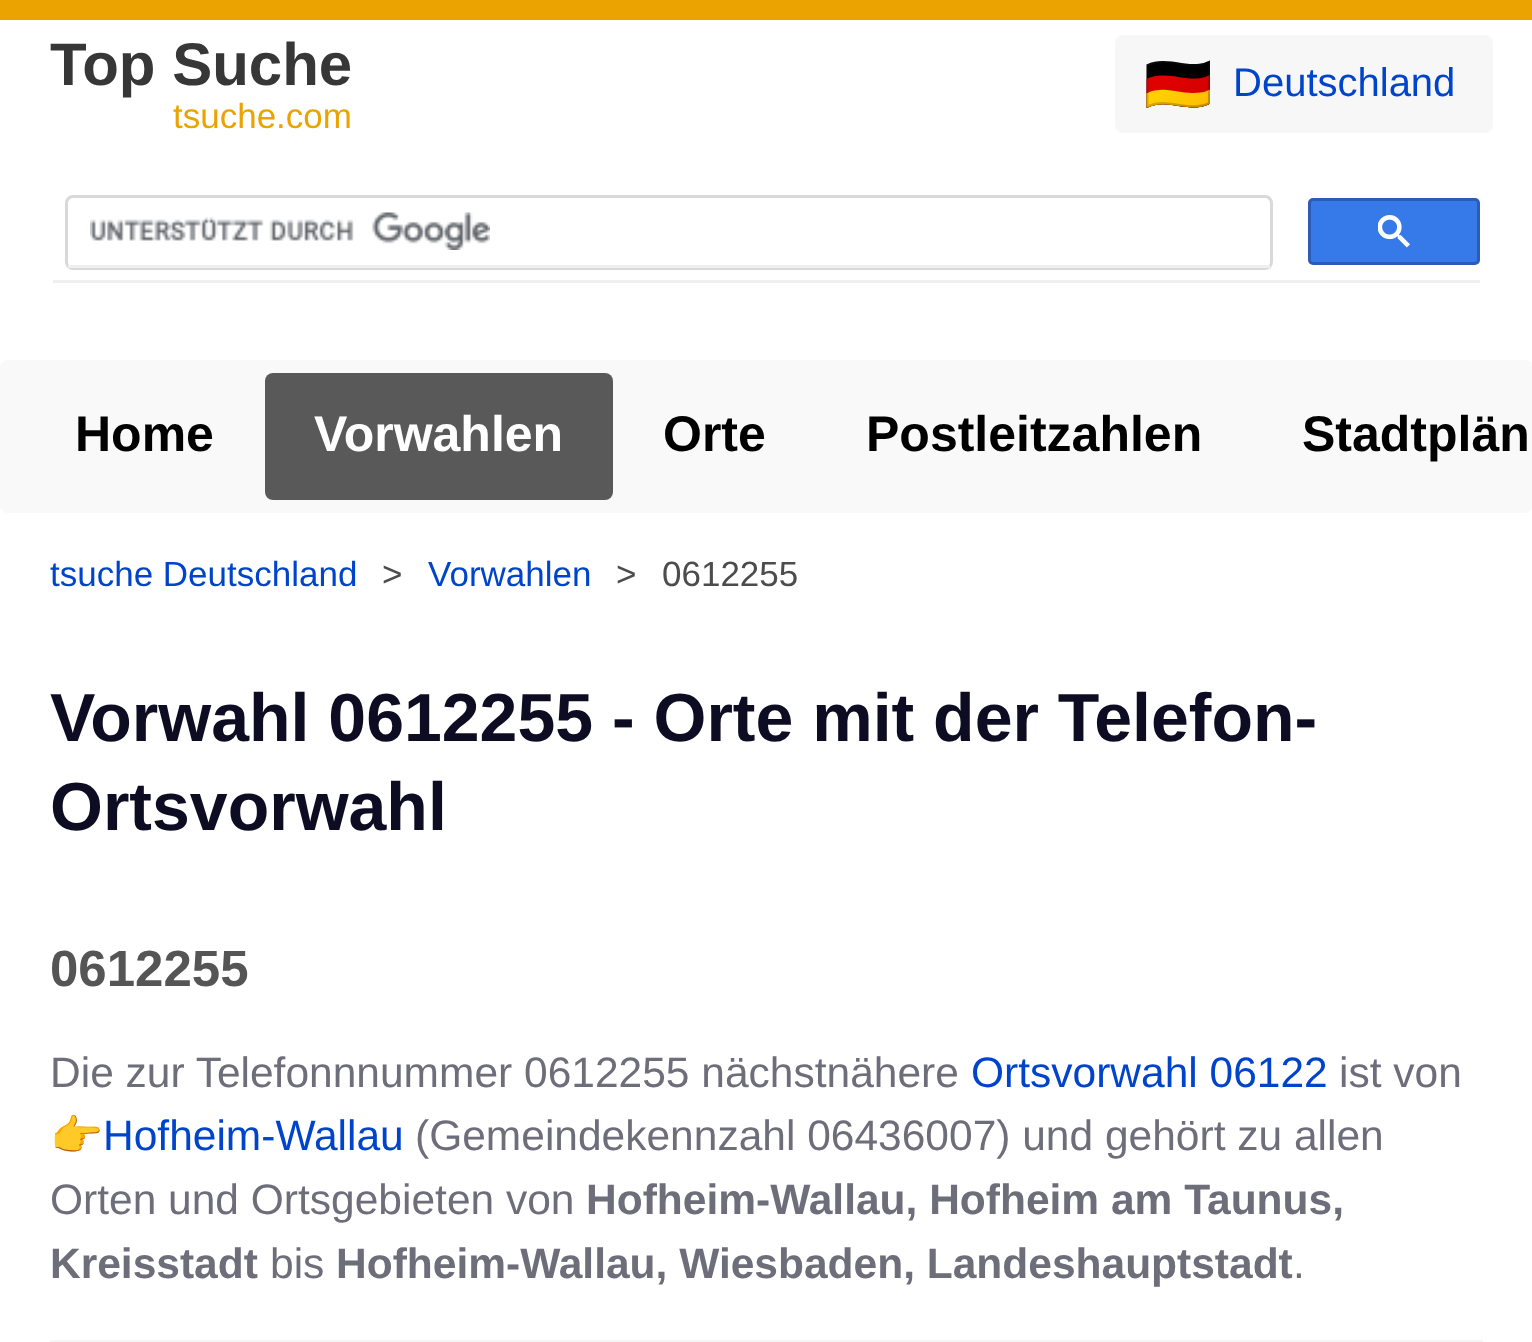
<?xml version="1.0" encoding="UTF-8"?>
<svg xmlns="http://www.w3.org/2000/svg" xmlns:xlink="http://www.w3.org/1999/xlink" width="1532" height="1342">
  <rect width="100%" height="100%" fill="#ffffff" />
  <rect width="1532" height="20" fill="#eba301" />
  <rect x="1115" y="35" width="378" height="98" rx="8" fill="#f7f7f7" />
  <rect x="53" y="280" width="1427" height="3" fill="#efefef" />
  <rect x="66.5" y="196.5" width="1205" height="72" rx="6.5" fill="none" stroke="#d9d9d9" stroke-width="3" />
  <rect x="68" y="265" width="1202" height="3" fill="#efefef" />
  <image x="90" y="212" width="400" height="38" xlink:href="image1.png" />
  <rect x="1309.5" y="199.5" width="169" height="64" rx="3.5" fill="#357ae8" stroke="#2f5bb7" stroke-width="3" />
  <image x="1378" y="215" width="32" height="33" xlink:href="image2.png" />
  <rect y="360" width="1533" height="153" rx="8" fill="#f9f9f9" />
  <rect x="265" y="373" width="348" height="127" rx="8" fill="#595959" />
  <rect x="50" y="1340" width="1433" height="2" fill="#f6f6f6" />
  <text x="50" y="85" style="font-family: Liberation Sans; font-size: 60px; font-weight: bold; fill: #373737">Top Suche</text>
  <text x="173" y="128" style="font-family: Liberation Sans; font-size: 35px; fill: #eba301">tsuche.com</text>
  <text x="1144" y="103" style="font-family: Noto Color Emoji; font-size: 55px; fill: #0044cc">🇩🇪</text>
  <text x="1233" y="96" style="font-family: Liberation Sans; font-size: 40px; fill: #0044cc">Deutschland</text>
  <text x="75" y="451" style="font-family: Liberation Sans; font-size: 50px; font-weight: bold; fill: #000000">Home</text>
  <text x="314" y="451" style="font-family: Liberation Sans; font-size: 50px; font-weight: bold; fill: #ffffff">Vorwahlen</text>
  <text x="663" y="451" style="font-family: Liberation Sans; font-size: 50px; font-weight: bold; fill: #000000">Orte</text>
  <text x="866" y="451" style="font-family: Liberation Sans; font-size: 50px; font-weight: bold; fill: #000000">Postleitzahlen</text>
  <text x="1302" y="451" style="font-family: Liberation Sans; font-size: 50px; font-weight: bold; fill: #000000">Stadtplän</text>
  <text x="50" y="586" style="font-family: Liberation Sans; font-size: 35px; fill: #0044cc">tsuche Deutschland</text>
  <text x="382" y="586" style="font-family: Liberation Sans; font-size: 35px; fill: #4c4c4c">&gt;</text>
  <text x="428" y="586" style="font-family: Liberation Sans; font-size: 35px; fill: #0044cc">Vorwahlen</text>
  <text x="616" y="586" style="font-family: Liberation Sans; font-size: 35px; fill: #4c4c4c">&gt;</text>
  <text x="662" y="586" style="font-family: Liberation Sans; font-size: 35px; fill: #4c4c4c">0612255</text>
  <text x="50" y="741" style="font-family: Liberation Sans; font-size: 68px; font-weight: bold; fill: #0d0c22">Vorwahl 0612255 - Orte mit der Telefon-</text>
  <text x="50" y="830" style="font-family: Liberation Sans; font-size: 68px; font-weight: bold; fill: #0d0c22">Ortsvorwahl</text>
  <text x="50" y="986" style="font-family: Liberation Sans; font-size: 51px; font-weight: bold; fill: #555555">0612255</text>
  <text x="50" y="1087" style="font-family: Liberation Sans; font-size: 42.5px; fill: #6e6d7a">Die zur Telefonnnummer 0612255 nächstnähere</text>
  <text x="971" y="1087" style="font-family: Liberation Sans; font-size: 42.5px; fill: #0044cc">Ortsvorwahl 06122</text>
  <text x="1339" y="1087" style="font-family: Liberation Sans; font-size: 42.5px; fill: #6e6d7a">ist von</text>
  <text x="50" y="1150" style="font-family: Noto Color Emoji; font-size: 42.5px; fill: #6e6d7a">👉</text>
  <text x="103" y="1150" style="font-family: Liberation Sans; font-size: 42.5px; fill: #0044cc">Hofheim-Wallau</text>
  <text x="415" y="1150" style="font-family: Liberation Sans; font-size: 42.5px; fill: #6e6d7a">(Gemeindekennzahl 06436007) und gehört zu allen</text>
  <text x="50" y="1214" style="font-family: Liberation Sans; font-size: 42.5px; fill: #6e6d7a">Orten und Ortsgebieten von</text>
  <text x="586" y="1214" style="font-family: Liberation Sans; font-size: 42.5px; font-weight: bold; fill: #6e6d7a">Hofheim-Wallau, Hofheim am Taunus,</text>
  <text x="50" y="1278" style="font-family: Liberation Sans; font-size: 42.5px; font-weight: bold; fill: #6e6d7a">Kreisstadt</text>
  <text x="270" y="1278" style="font-family: Liberation Sans; font-size: 42.5px; fill: #6e6d7a">bis</text>
  <text x="336" y="1278" style="font-family: Liberation Sans; font-size: 42.5px; font-weight: bold; fill: #6e6d7a">Hofheim-Wallau, Wiesbaden, Landeshauptstadt</text>
  <text x="1293" y="1278" style="font-family: Liberation Sans; font-size: 42.5px; fill: #6e6d7a">.</text>
</svg>
